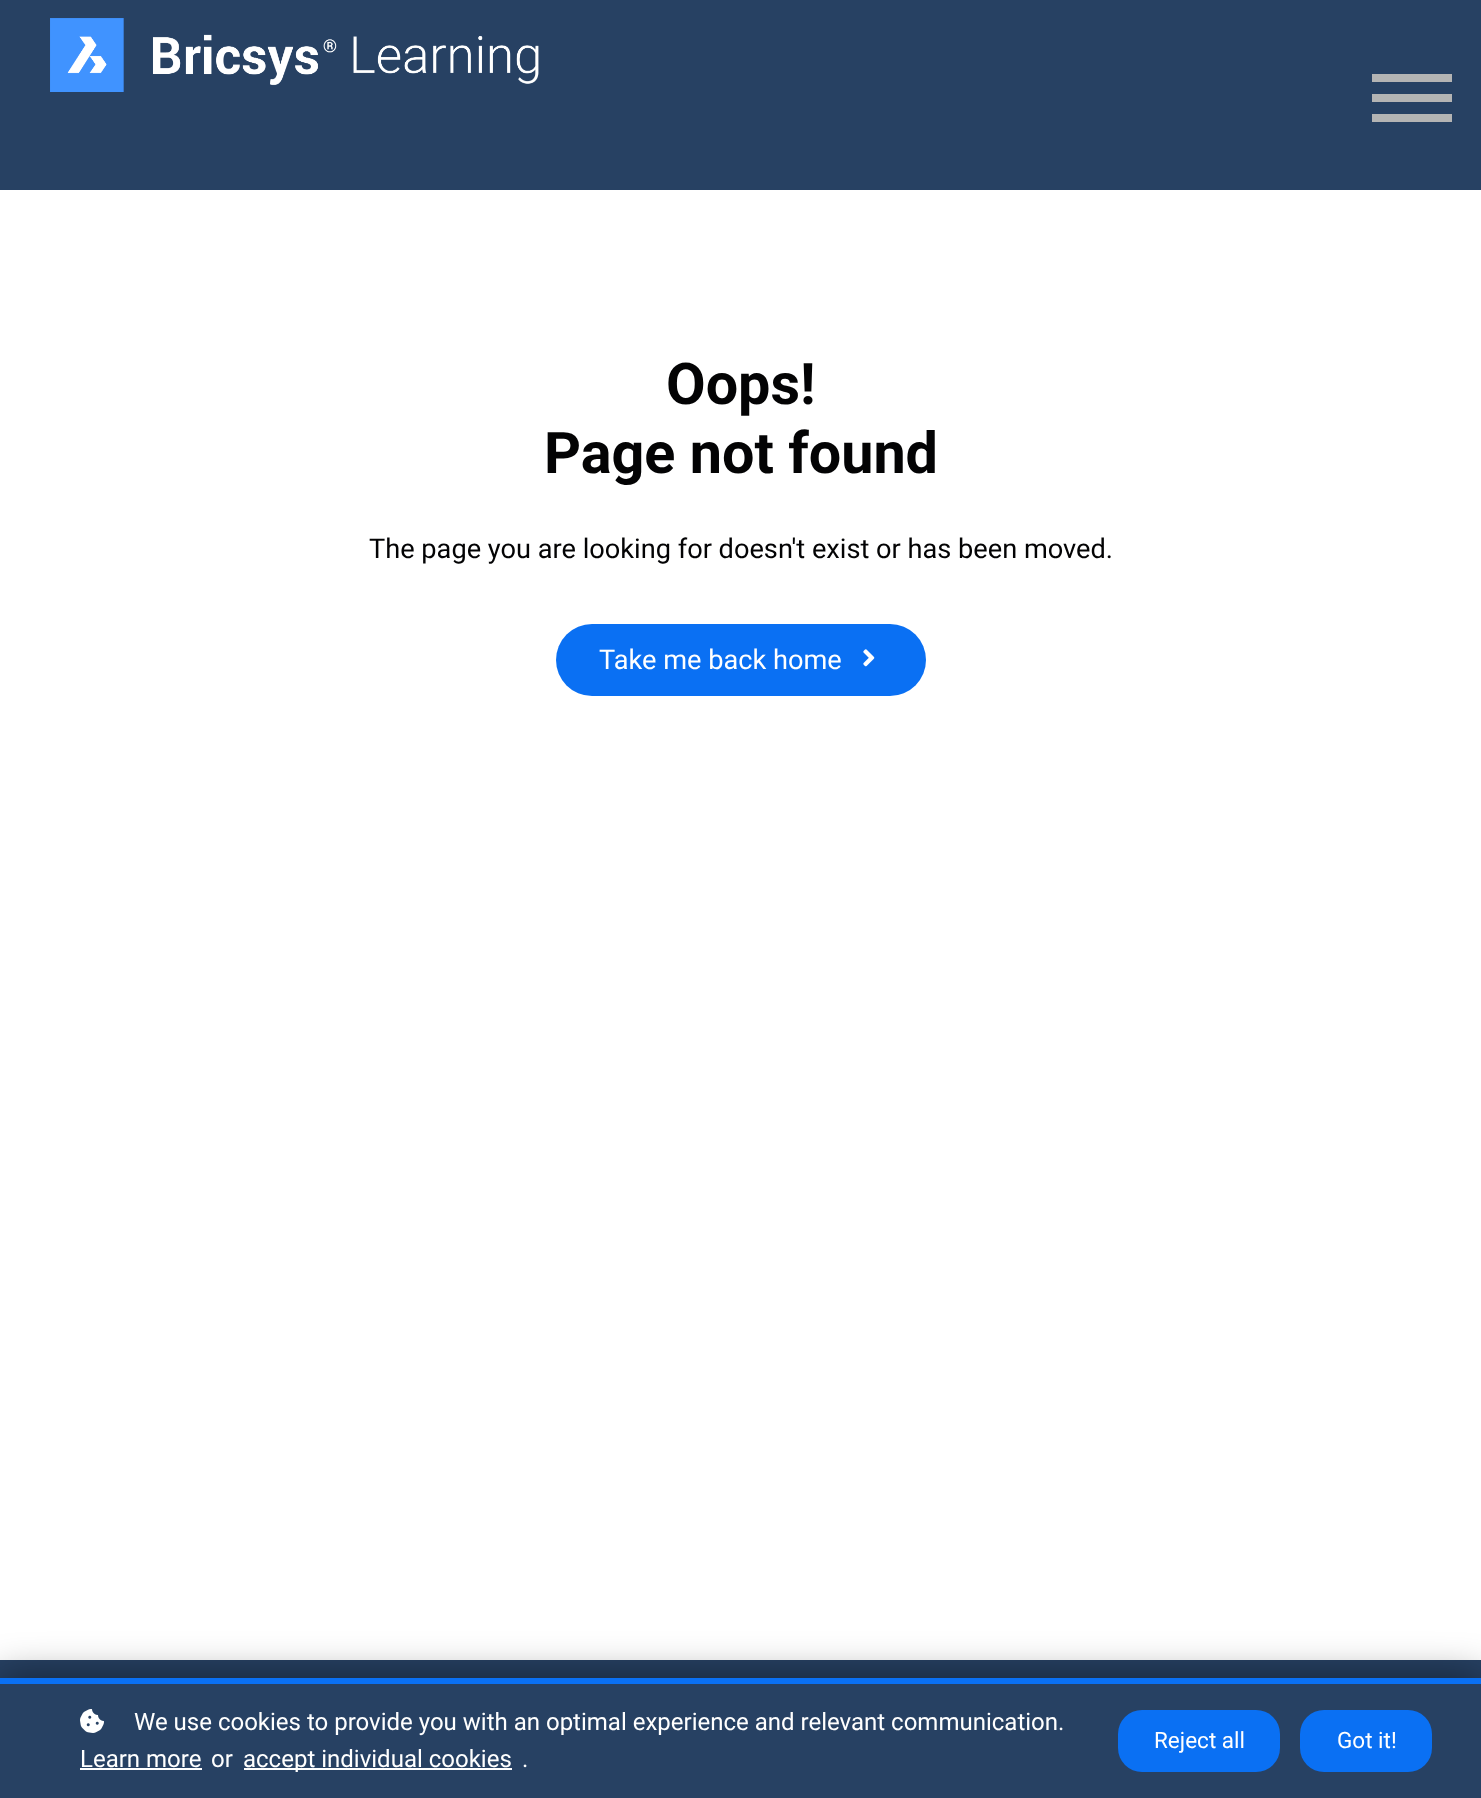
<?xml version="1.0" encoding="UTF-8"?>
<svg xmlns="http://www.w3.org/2000/svg" xmlns:xlink="http://www.w3.org/1999/xlink" width="1481" height="1798">
  <rect width="100%" height="100%" fill="#ffffff" />
  <rect width="1481" height="190" fill="#274163" />
  <image x="50" y="18" width="489" height="74" xlink:href="image1.png" />
  <rect x="1372" y="114" width="80" height="8" fill="#b4b4b4" />
  <rect x="1372" y="74" width="80" height="8" fill="#b4b4b4" />
  <rect x="1372" y="94" width="80" height="8" fill="#b4b4b4" />
  <rect x="556" y="624" width="370" height="72" rx="36" fill="#0a70f3" />
  <image x="863" y="649" width="12" height="18" xlink:href="image2.png" />
  <rect y="1660" width="1481" height="18" fill="#274163" />
  <rect y="1678" width="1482" height="120" fill="#000000" fill-opacity="0.5" filter="blur(20px)" />
  <rect y="1684" width="1481" height="114" fill="#274163" />
  <rect y="1678" width="1481" height="6" fill="#0a70f3" />
  <image x="80" y="1709" width="24" height="24" xlink:href="image3.png" />
  <rect x="80" y="1768" width="122" height="2" fill="#ffffff" />
  <rect x="244" y="1768" width="268" height="2" fill="#ffffff" />
  <rect x="1118" y="1710" width="162" height="62" rx="24" fill="#0a70f3" />
  <rect x="1300" y="1710" width="132" height="62" rx="24" fill="#0a70f3" />
  <text x="666" y="404" style="font-family: Roboto; font-size: 57.5px; font-weight: bold; fill: #030304">Oops!</text>
  <text x="544" y="473" style="font-family: Roboto; font-size: 57.5px; font-weight: bold; fill: #030304">Page not found</text>
  <text x="369" y="558" style="font-family: Roboto; font-size: 27.2px; fill: #030304">The page you are looking for doesn't exist or has been moved.</text>
  <text x="599" y="669" style="font-family: Roboto; font-size: 27.2px; fill: #ffffff">Take me back home</text>
  <text x="134" y="1730" style="font-family: Roboto; font-size: 24px; fill: #ffffff">We use cookies to provide you with an optimal experience and relevant communication.</text>
  <text x="80" y="1767" style="font-family: Roboto; font-size: 24px; fill: #ffffff">Learn more</text>
  <text x="211" y="1767" style="font-family: Roboto; font-size: 24px; fill: #ffffff">or</text>
  <text x="243" y="1767" style="font-family: Roboto; font-size: 24px; fill: #ffffff">accept individual cookies</text>
  <text x="522" y="1767" style="font-family: Roboto; font-size: 24px; fill: #ffffff">.</text>
  <text x="1154" y="1748" style="font-family: Roboto; font-size: 22.5px; fill: #ffffff">Reject all</text>
  <text x="1337" y="1748" style="font-family: Roboto; font-size: 22.5px; fill: #ffffff">Got it!</text>
</svg>
